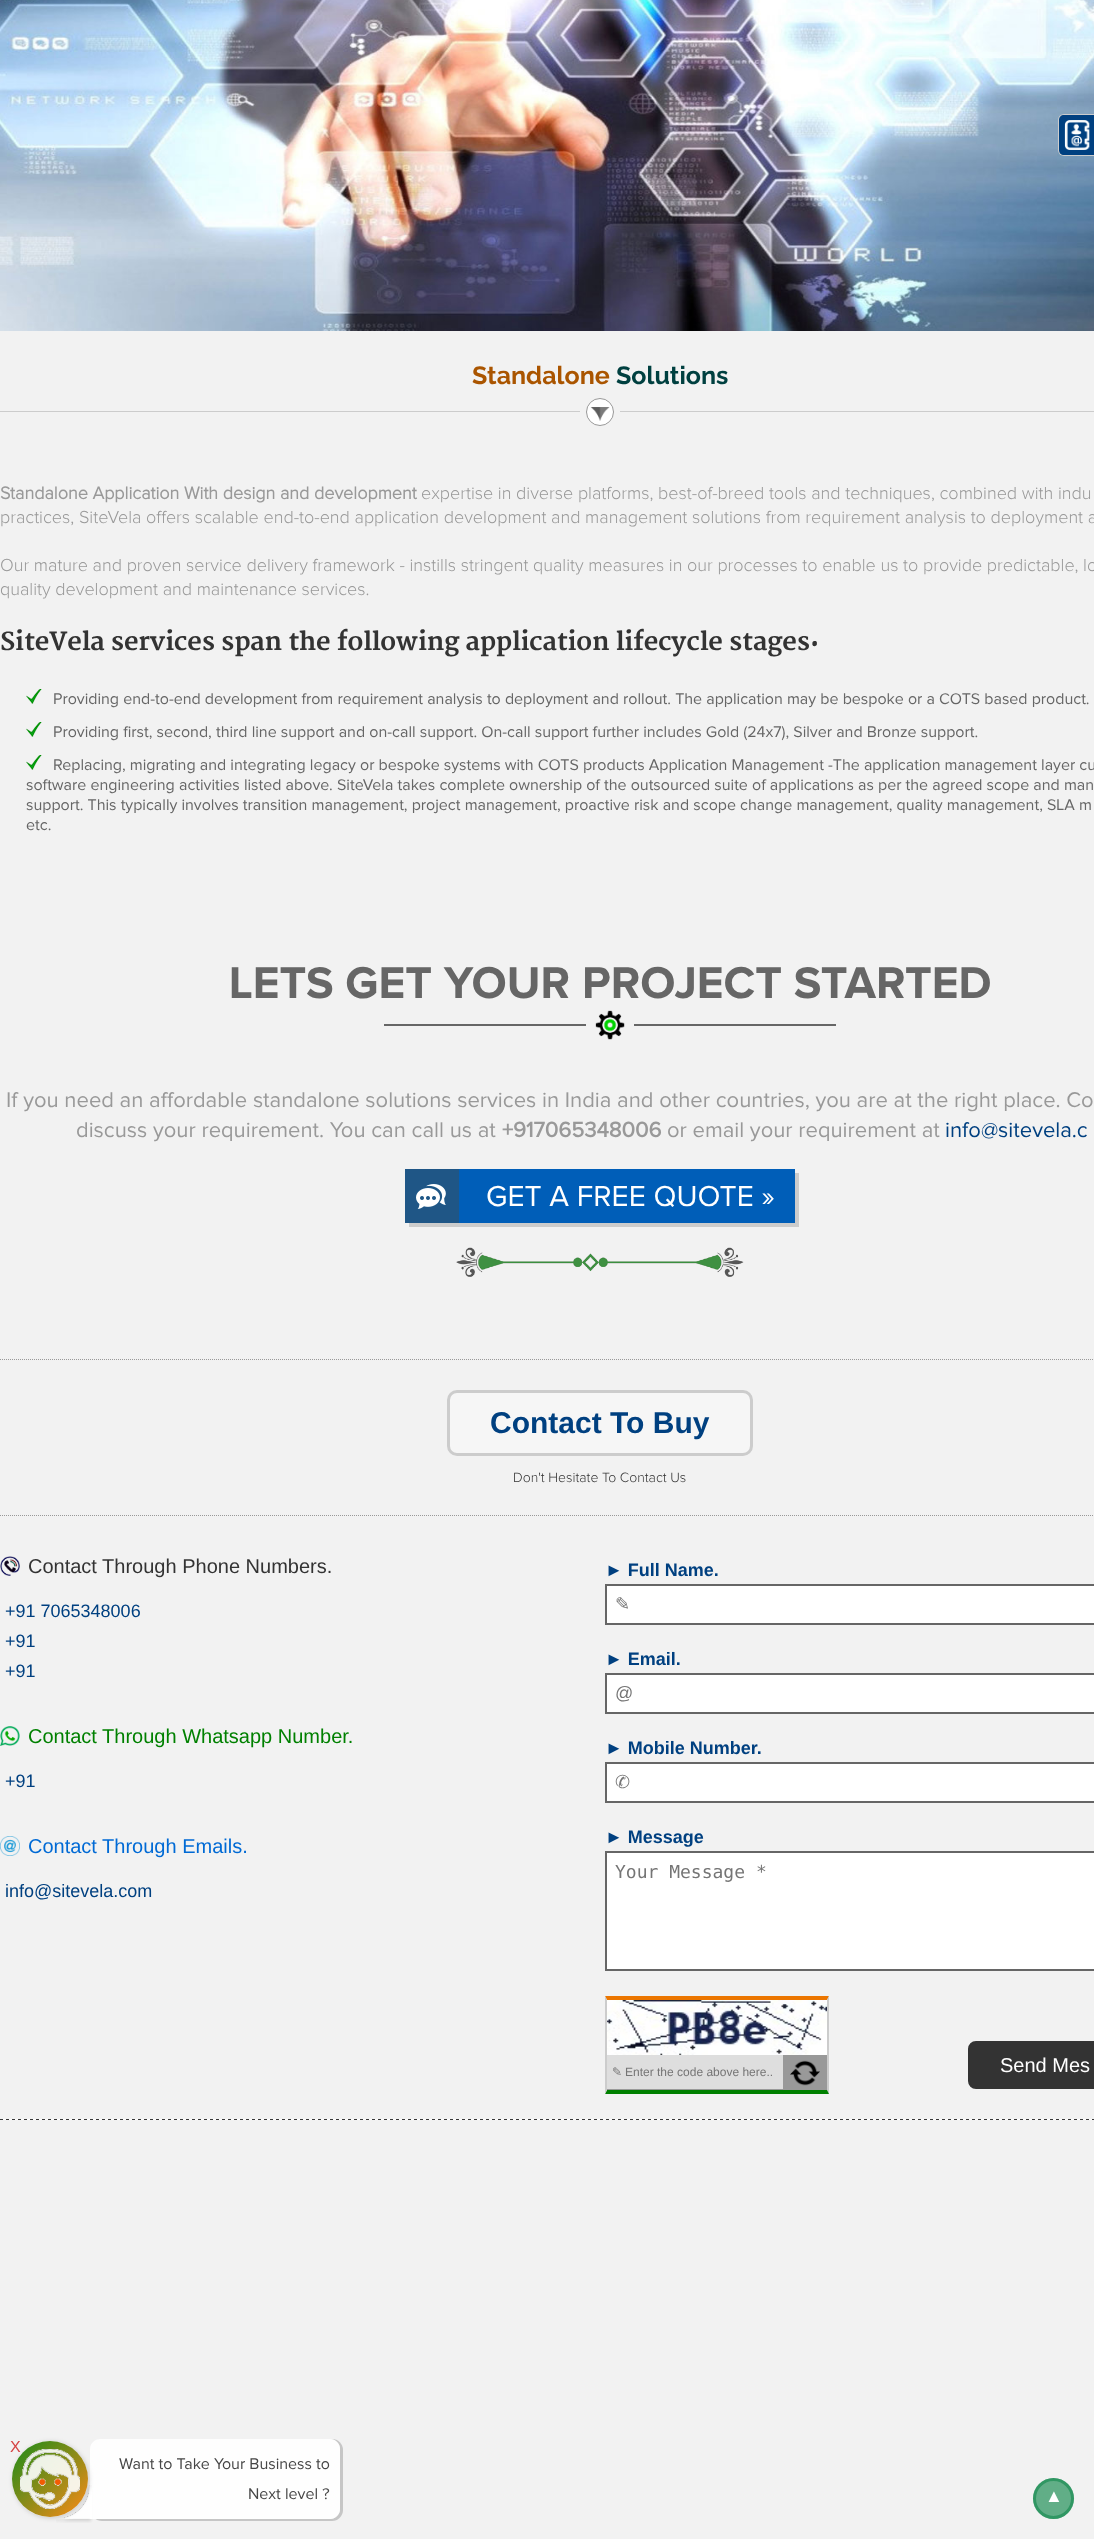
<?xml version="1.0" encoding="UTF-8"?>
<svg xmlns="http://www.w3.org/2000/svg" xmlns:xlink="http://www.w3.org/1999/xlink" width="1094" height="2539">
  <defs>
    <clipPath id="clip1"><path d="M 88 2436 h 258 v 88 h -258 z m 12 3 h 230 c 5.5 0 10 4.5 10 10 v 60 c 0 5.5 -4.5 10 -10 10 h -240 v -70 c 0 -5.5 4.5 -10 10 -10 z" clip-rule="evenodd" /></clipPath>
    <clipPath id="clip2"><path d="M 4 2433 h 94 v 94 h -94 z m 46 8 c 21 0 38 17 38 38 c 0 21 -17 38 -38 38 c -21 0 -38 -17 -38 -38 c 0 -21 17 -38 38 -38 z" clip-rule="evenodd" /></clipPath>
    <linearGradient id="g1" gradientUnits="userSpaceOnUse" x1="12" y1="2441" x2="88" y2="2517"><stop offset="0" stop-color="#008000" stop-opacity="0.9" /><stop offset="1" stop-color="#ff8000" stop-opacity="0.9" /></linearGradient>
  </defs>
  <rect width="100%" height="100%" fill="#f2f2f2" />
  <image x="0" y="0" width="1094" height="331" xlink:href="image2.png" />
  <rect x="1058" y="114" width="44" height="42" rx="6" fill="#cccccc" filter="blur(0.5px)" />
  <path d="M 1064 115 h 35 v 40 h -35 c -3 0 -5 -2 -5 -5 v -30 c 0 -3 2 -5 5 -5 z" fill="#004080" />
  <image x="1064" y="120" width="26" height="30" xlink:href="image1.png" />
  <rect y="411" width="1094" height="1" fill="#cccccc" />
  <rect x="614" y="411" width="6" height="1" fill="#f2f2f2" />
  <rect x="580" y="411" width="6" height="1" fill="#f2f2f2" />
  <circle cx="600" cy="412" r="13.5" fill="#ffffff" stroke="#999999" />
  <image x="590" y="407" width="20" height="14" xlink:href="image3.png" />
  <image x="26" y="689" width="16" height="15" xlink:href="image4.png" />
  <image x="26" y="722" width="16" height="15" xlink:href="image4.png" />
  <image x="26" y="755" width="16" height="15" xlink:href="image4.png" />
  <rect x="384" y="1024" width="202" height="2" fill="#666666" />
  <image x="595" y="1010" width="30" height="30" xlink:href="image5.png" />
  <rect x="634" y="1024" width="202" height="2" fill="#666666" />
  <path d="M 409 1223 v 4 h 390 v -54 h -4 v 50 z" fill="#cccccc" />
  <rect x="459" y="1169" width="336" height="54" fill="#005eb8" />
  <image x="405" y="1169" width="54" height="54" xlink:href="image6.png" />
  <image x="456" y="1247" width="288" height="30" xlink:href="image7.png" />
  <path d="M 0 1359.5 h 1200" fill="none" stroke="#999999" stroke-dasharray="1 1" />
  <path d="M 0 1515.5 h 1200" fill="none" stroke="#999999" stroke-dasharray="1 1" />
  <rect x="448.5" y="1391.5" width="303" height="63" rx="8.5" fill="#f6f6f6" stroke="#cccccc" stroke-width="3" />
  <image x="0" y="1556" width="20" height="20" xlink:href="image8.png" />
  <image x="0" y="1726" width="20" height="20" xlink:href="image9.png" />
  <image x="0" y="1836" width="20" height="20" xlink:href="image10.png" />
  <rect x="606" y="1585" width="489" height="39" fill="#ffffff" stroke="#666666" stroke-width="2" />
  <rect x="606" y="1674" width="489" height="39" fill="#ffffff" stroke="#666666" stroke-width="2" />
  <rect x="606" y="1763" width="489" height="39" fill="#ffffff" stroke="#666666" stroke-width="2" />
  <rect x="606" y="1852" width="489" height="118" fill="#ffffff" stroke="#666666" stroke-width="2" />
  <rect x="607" y="2055" width="220" height="35" fill="#999999" />
  <path d="M 605 1996 h 224 l -2 4 h -220 z" fill="#ec7600" />
  <path d="M 829 1996 v 98 l -2 -4 v -90 z" fill="#cccccc" />
  <path d="M 829 2094 h -224 l 2 -4 h 220 z" fill="#008000" />
  <path d="M 605 2094 v -98 l 2 4 v 90 z" fill="#cccccc" />
  <image x="607" y="2000" width="220" height="55" xlink:href="image11.png" />
  <rect x="607" y="2055" width="176" height="34" fill="#dedede" />
  <image x="790" y="2060" width="30" height="26" xlink:href="image12.png" />
  <rect x="969" y="2042" width="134" height="46" rx="7" fill="#333333" stroke="#333333" stroke-width="2" />
  <image x="0" y="2119" width="1094" height="1" xlink:href="image13.png" />
  <circle cx="1053.5" cy="2498.5" r="20.5" fill="#61ae87" />
  <circle cx="1053.5" cy="2498.5" r="19" fill="none" stroke="#008040" stroke-opacity="0.5" stroke-width="3" />
  <image x="56" y="2485" width="37" height="38" xlink:href="image14.png" />
  <g clip-path="url(#clip1)">
    <rect x="91" y="2439" width="252" height="82" rx="11" fill="#181818" fill-opacity="0.2" filter="blur(0.5px)" />
  </g>
  <path d="M 100 2439 h 230 c 5.5 0 10 4.5 10 10 v 60 c 0 5.5 -4.5 10 -10 10 h -240 v -70 c 0 -5.5 4.5 -10 10 -10 z" fill="#ffffff" fill-opacity="0.9" />
  <g clip-path="url(#clip2)">
    <rect x="13" y="2442" width="76" height="76" rx="38" fill="#000000" fill-opacity="0.18" filter="blur(2.5px)" />
  </g>
  <circle cx="50" cy="2479" r="38" fill="url(#g1)" />
  <image x="20" y="2449" width="60" height="60" xlink:href="image15.png" />
  <text x="472" y="384" style="font-family: Raleway; font-size: 25px; font-weight: bold; fill: #aa5500">Standalone</text>
  <text x="616" y="384" style="font-family: Raleway; font-size: 25px; font-weight: bold; fill: #004040">Solutions</text>
  <text x="0" y="499" style="font-family: Proxima Nova; font-size: 18px; font-weight: bold; fill: #999999">Standalone Application With design and development</text>
  <text x="421" y="499" style="font-family: Proxima Nova; font-size: 18px; font-weight: 300; fill: #999999">expertise in diverse platforms, best-of-breed tools and techniques, combined with indu</text>
  <text x="0" y="523" style="font-family: Proxima Nova; font-size: 18px; font-weight: 300; fill: #999999">practices, SiteVela offers scalable end-to-end application development and management solutions from requirement analysis to deployment a</text>
  <text x="0" y="571" style="font-family: Proxima Nova; font-size: 18px; font-weight: 300; fill: #999999">Our mature and proven service delivery framework - instills stringent quality measures in our processes to enable us to provide predictable, lo</text>
  <text x="0" y="595" style="font-family: Proxima Nova; font-size: 18px; font-weight: 300; fill: #999999">quality development and maintenance services.</text>
  <text x="0" y="650" style="font-family: Merriweather; font-size: 25px; font-weight: bold; fill: #333333">SiteVela services span the following application lifecycle stages:</text>
  <text x="53" y="704" style="font-family: Proxima Nova; font-size: 16px; fill: #666666">Providing end-to-end development from requirement analysis to deployment and rollout. The application may be bespoke or a COTS based product.</text>
  <text x="53" y="737" style="font-family: Proxima Nova; font-size: 16px; fill: #666666">Providing first, second, third line support and on-call support. On-call support further includes Gold (24x7), Silver and Bronze support.</text>
  <text x="53" y="770" style="font-family: Proxima Nova; font-size: 16px; fill: #666666">Replacing, migrating and integrating legacy or bespoke systems with COTS products Application Management -The application management layer cu</text>
  <text x="26" y="790" style="font-family: Proxima Nova; font-size: 16px; fill: #666666">software engineering activities listed above. SiteVela takes complete ownership of the outsourced suite of applications as per the agreed scope and man</text>
  <text x="26" y="810" style="font-family: Proxima Nova; font-size: 16px; fill: #666666">support. This typically involves transition management, project management, proactive risk and scope change management, quality management, SLA m</text>
  <text x="26" y="830" style="font-family: Proxima Nova; font-size: 16px; fill: #666666">etc.</text>
  <text x="229" y="998" style="font-family: 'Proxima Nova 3'; font-size: 46px; font-weight: bold; fill: #666666">LETS GET YOUR PROJECT STARTED</text>
  <text x="6" y="1107" style="font-family: Proxima Nova; font-size: 22px; fill: #999999">If you need an affordable standalone solutions services in India and other countries, you are at the right place. Co</text>
  <text x="76" y="1137" style="font-family: Proxima Nova; font-size: 22px; fill: #999999">discuss your requirement. You can call us at</text>
  <text x="502" y="1137" style="font-family: 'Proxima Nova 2'; font-size: 22px; font-weight: bold; fill: #999999">+917065348006</text>
  <text x="667" y="1137" style="font-family: Proxima Nova; font-size: 22px; fill: #999999">or email your requirement at</text>
  <text x="945" y="1137" style="font-family: Proxima Nova; font-size: 22px; fill: #004080">info@sitevela.c</text>
  <text x="486" y="1206" style="font-family: Proxima Nova; font-size: 30px; fill: #ffffff">GET A FREE QUOTE »</text>
  <text x="490" y="1433" style="font-family: Liberation Sans; font-size: 30px; font-weight: bold; fill: #004080">Contact To Buy</text>
  <text x="513" y="1482" style="font-family: Proxima Nova; font-size: 14px; font-weight: 300; fill: #333333">Don't Hesitate To Contact Us</text>
  <text x="28" y="1573" style="font-family: Liberation Sans; font-size: 20px; fill: #333333">Contact Through Phone Numbers.</text>
  <text x="5" y="1617" style="font-family: Liberation Sans; font-size: 18px; fill: #004080">+91 7065348006</text>
  <text x="5" y="1647" style="font-family: Liberation Sans; font-size: 18px; fill: #004080">+91</text>
  <text x="5" y="1677" style="font-family: Liberation Sans; font-size: 18px; fill: #004080">+91</text>
  <text x="28" y="1743" style="font-family: Liberation Sans; font-size: 20px; fill: #008000">Contact Through Whatsapp Number.</text>
  <text x="5" y="1787" style="font-family: Liberation Sans; font-size: 18px; fill: #004080">+91</text>
  <text x="28" y="1853" style="font-family: Liberation Sans; font-size: 20px; fill: #006ad5">Contact Through Emails.</text>
  <text x="5" y="1897" style="font-family: Liberation Sans; font-size: 18px; fill: #004080">info@sitevela.com</text>
  <text x="605" y="1576" style="font-family: Liberation Sans; font-size: 18px; font-weight: bold; fill: #004080">► Full Name.</text>
  <text x="615" y="1610" style="font-family: DejaVu Sans; font-size: 18px; fill: #757575">✎</text>
  <text x="605" y="1665" style="font-family: Liberation Sans; font-size: 18px; font-weight: bold; fill: #004080">► Email.</text>
  <text x="615" y="1699" style="font-family: Liberation Sans; font-size: 18px; fill: #757575">@</text>
  <text x="605" y="1754" style="font-family: Liberation Sans; font-size: 18px; font-weight: bold; fill: #004080">► Mobile Number.</text>
  <text x="615" y="1788" style="font-family: DejaVu Sans; font-size: 18px; fill: #757575">✆</text>
  <text x="605" y="1843" style="font-family: Liberation Sans; font-size: 18px; font-weight: bold; fill: #004080">► Message</text>
  <text x="615" y="1878" style="font-family: DejaVu Sans Mono; font-size: 18px; fill: #757575">Your Message *</text>
  <text x="612" y="2076" style="font-family: DejaVu Sans; font-size: 12px; fill: #757575">✎</text>
  <text x="625" y="2076" style="font-family: Liberation Sans; font-size: 12px; fill: #757575">Enter the code above here..</text>
  <text x="1000" y="2072" style="font-family: Liberation Sans; font-size: 20px; fill: #ffffff">Send Mes</text>
  <text x="1045" y="2502" style="font-family: Liberation Sans; font-size: 18px; font-style: italic; fill: #ffffff">▲</text>
  <text x="10" y="2452" style="font-family: Liberation Sans; font-size: 16px; fill: #d54444">X</text>
  <text x="119" y="2469" style="font-family: Proxima Nova; font-size: 16px; fill: #464646">Want to Take Your Business to</text>
  <text x="248" y="2499" style="font-family: Proxima Nova; font-size: 16px; fill: #464646">Next level ?</text>
</svg>
